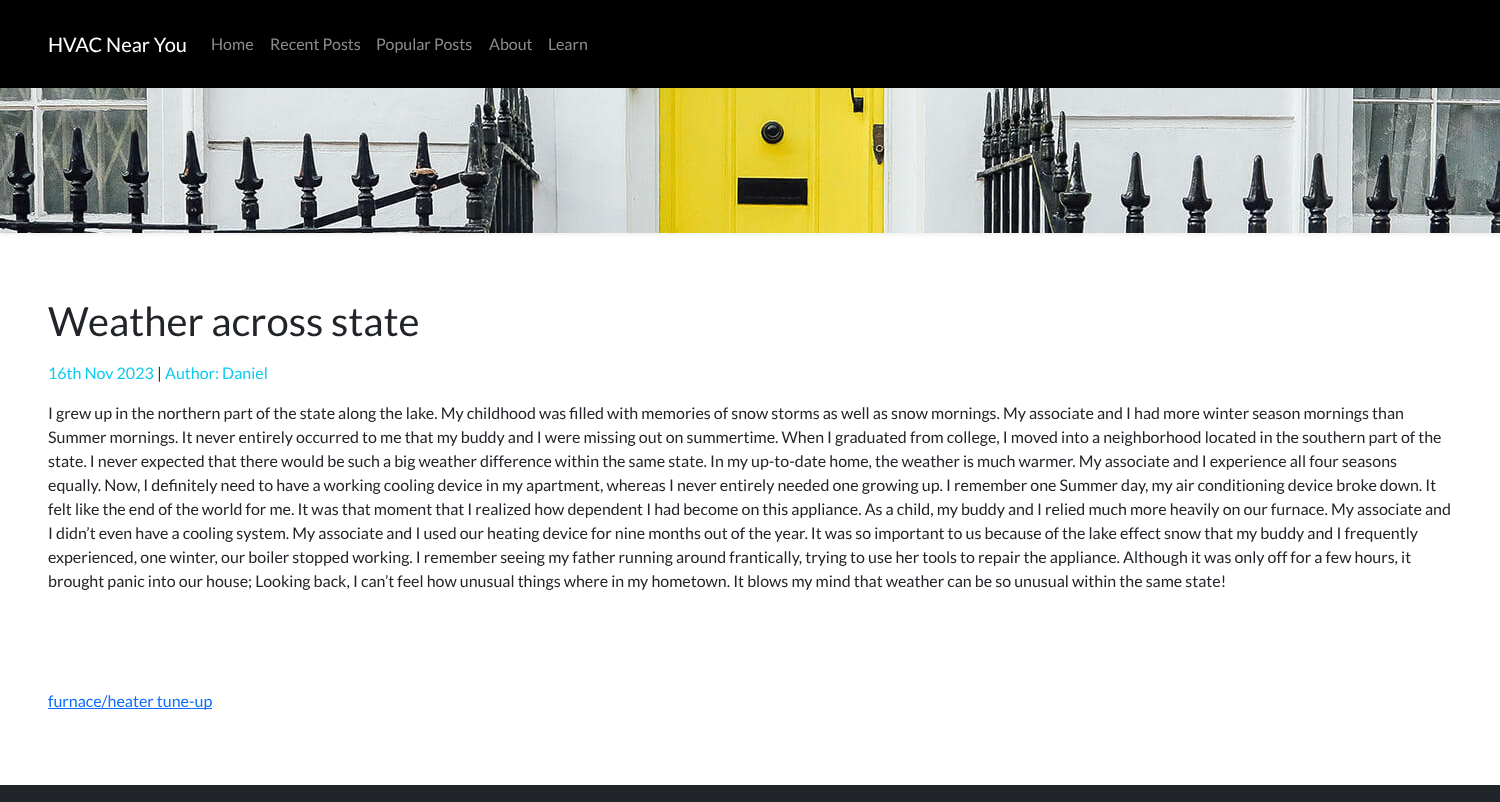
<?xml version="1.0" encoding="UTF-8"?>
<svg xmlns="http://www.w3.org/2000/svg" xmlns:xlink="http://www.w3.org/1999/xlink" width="1500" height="802">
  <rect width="100%" height="100%" fill="#ffffff" />
  <rect y="2" width="1500" height="233" fill="#212529" fill-opacity="0.07" filter="blur(2px)" />
  <image x="0" y="88" width="1500" height="145" xlink:href="image1.png" />
  <rect width="1500" height="88" fill="#000000" />
  <rect x="48" y="708" width="164" height="1" fill="#0d6efd" />
  <rect y="785" width="1500" height="17" fill="#212529" />
  <text x="48" y="52" style="font-family: Lato; font-size: 20px; fill: #ffffff">HVAC Near You</text>
  <text x="211" y="50" style="font-family: Lato; font-size: 16px; fill: #8c8c8c">Home</text>
  <text x="270" y="50" style="font-family: Lato; font-size: 16px; fill: #8c8c8c">Recent Posts</text>
  <text x="376" y="50" style="font-family: Lato; font-size: 16px; fill: #8c8c8c">Popular Posts</text>
  <text x="489" y="50" style="font-family: Lato; font-size: 16px; fill: #8c8c8c">About</text>
  <text x="548" y="50" style="font-family: Lato; font-size: 16px; fill: #8c8c8c">Learn</text>
  <text x="48" y="336" style="font-family: Lato; font-size: 40px; fill: #212529">Weather across state</text>
  <text x="48" y="379" style="font-family: Lato; font-size: 16px; fill: #0dcaf0">16th Nov 2023</text>
  <text x="157" y="379" style="font-family: Lato; font-size: 16px; fill: #212529">|</text>
  <text x="165" y="379" style="font-family: Lato; font-size: 16px; fill: #0dcaf0">Author: Daniel</text>
  <text x="48" y="419" style="font-family: Lato; font-size: 16px; fill: #212529">I grew up in the northern part of the state along the lake. My childhood was filled with memories of snow storms as well as snow mornings. My associate and I had more winter season mornings than</text>
  <text x="48" y="443" style="font-family: Lato; font-size: 16px; fill: #212529">Summer mornings. It never entirely occurred to me that my buddy and I were missing out on summertime. When I graduated from college, I moved into a neighborhood located in the southern part of the</text>
  <text x="48" y="467" style="font-family: Lato; font-size: 16px; fill: #212529">state. I never expected that there would be such a big weather difference within the same state. In my up-to-date home, the weather is much warmer. My associate and I experience all four seasons</text>
  <text x="48" y="491" style="font-family: Lato; font-size: 16px; fill: #212529">equally. Now, I definitely need to have a working cooling device in my apartment, whereas I never entirely needed one growing up. I remember one Summer day, my air conditioning device broke down. It</text>
  <text x="48" y="515" style="font-family: Lato; font-size: 16px; fill: #212529">felt like the end of the world for me. It was that moment that I realized how dependent I had become on this appliance. As a child, my buddy and I relied much more heavily on our furnace. My associate and</text>
  <text x="48" y="539" style="font-family: Lato; font-size: 16px; fill: #212529">I didn’t even have a cooling system. My associate and I used our heating device for nine months out of the year. It was so important to us because of the lake effect snow that my buddy and I frequently</text>
  <text x="48" y="563" style="font-family: Lato; font-size: 16px; fill: #212529">experienced, one winter, our boiler stopped working. I remember seeing my father running around frantically, trying to use her tools to repair the appliance. Although it was only off for a few hours, it</text>
  <text x="48" y="587" style="font-family: Lato; font-size: 16px; fill: #212529">brought panic into our house; Looking back, I can’t feel how unusual things where in my hometown. It blows my mind that weather can be so unusual within the same state!</text>
  <text x="48" y="707" style="font-family: Lato; font-size: 16px; fill: #0d6efd">furnace/heater tune-up</text>
</svg>
